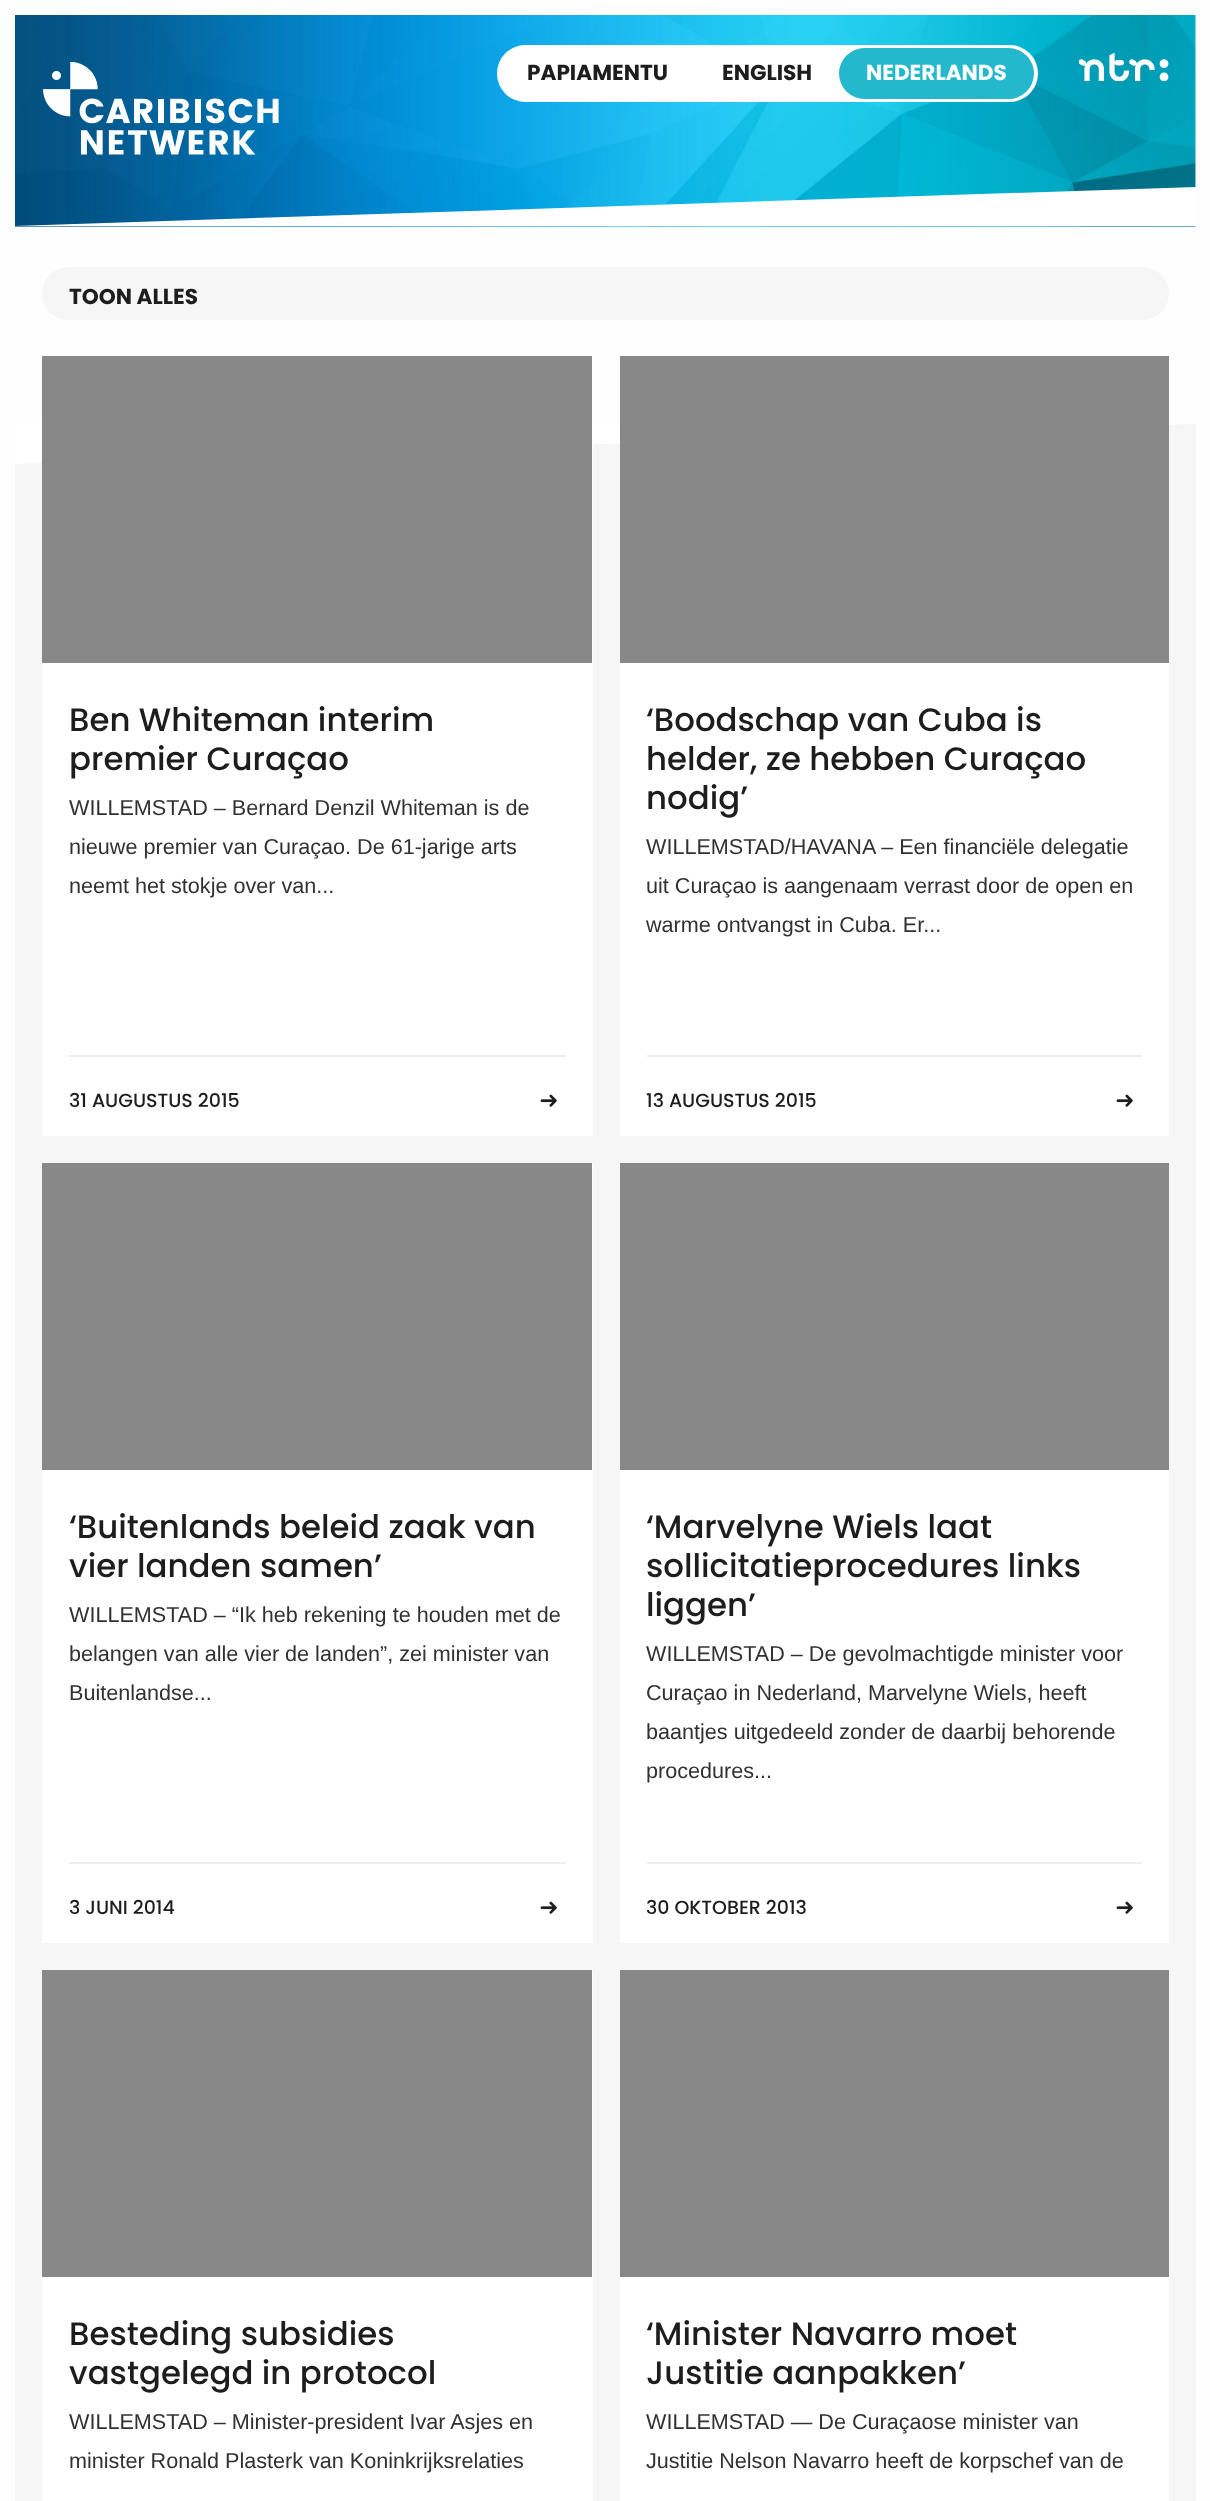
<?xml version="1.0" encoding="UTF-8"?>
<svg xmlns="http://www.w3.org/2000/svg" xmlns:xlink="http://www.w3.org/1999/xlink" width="1210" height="2501">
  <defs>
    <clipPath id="clip1"><rect x="15" y="15" width="1181" height="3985" /></clipPath>
    <clipPath id="clip2"><rect x="42" y="356" width="551" height="307" /></clipPath>
    <clipPath id="clip3"><rect x="620" y="356" width="549" height="307" /></clipPath>
    <clipPath id="clip4"><rect x="42" y="1163" width="551" height="307" /></clipPath>
    <clipPath id="clip5"><rect x="620" y="1163" width="549" height="307" /></clipPath>
    <clipPath id="clip6"><rect x="42" y="1970" width="551" height="307" /></clipPath>
    <clipPath id="clip7"><rect x="620" y="1970" width="549" height="307" /></clipPath>
  </defs>
  <rect width="100%" height="100%" fill="#fefefe" />
  <image x="15" y="15" width="1181" height="212" xlink:href="image1.png" />
  <image x="43" y="62" width="236" height="93" xlink:href="image2.png" />
  <rect x="497" y="45" width="541" height="57" rx="28.5" fill="#ffffff" />
  <rect x="839" y="48" width="195" height="51" rx="25.5" fill="#24b8cd" />
  <image x="1079" y="53" width="90" height="28" xlink:href="image3.png" />
  <g clip-path="url(#clip1)">
    <path d="M 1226 226 h -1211 l 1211 -40 z" fill="#ffffff" />
  </g>
  <rect x="42" y="267" width="1127" height="53" rx="26.5" fill="#f6f6f6" />
  <rect x="15" y="424" width="1181" height="2077" fill="#f6f6f6" />
  <g clip-path="url(#clip1)">
    <path d="M 15 423 h 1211 l -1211 41 z" fill="#ffffff" />
  </g>
  <rect x="42" y="444" width="551" height="692" fill="#ffffff" />
  <g clip-path="url(#clip2)">
    <path d="M 408 142 h -366 v 733 h 550 v -549 z m 0 184 v -138 l 138 138 z" fill="#888888" />
  </g>
  <rect x="69" y="1055" width="497" height="2" fill="#eeeeee" />
  <image x="540" y="1094" width="17" height="13" xlink:href="image4.png" />
  <rect x="620" y="663" width="549" height="473" fill="#ffffff" />
  <g clip-path="url(#clip3)">
    <path d="M 986 142 h -366 v 733 h 549 v -549 z m 0 184 v -138 l 137 138 z" fill="#888888" />
  </g>
  <rect x="647" y="1055" width="495" height="2" fill="#eeeeee" />
  <image x="1116" y="1094" width="17" height="13" xlink:href="image4.png" />
  <rect x="42" y="1163" width="551" height="780" fill="#ffffff" />
  <g clip-path="url(#clip4)">
    <path d="M 408 950 h -366 v 732 h 550 v -549 z m 0 183 v -138 l 138 138 z" fill="#888888" />
  </g>
  <rect x="69" y="1862" width="497" height="2" fill="#eeeeee" />
  <image x="540" y="1901" width="17" height="13" xlink:href="image4.png" />
  <rect x="620" y="1470" width="549" height="473" fill="#ffffff" />
  <g clip-path="url(#clip5)">
    <path d="M 986 950 h -366 v 732 h 549 v -549 z m 0 183 v -138 l 137 138 z" fill="#888888" />
  </g>
  <rect x="647" y="1862" width="495" height="2" fill="#eeeeee" />
  <image x="1116" y="1901" width="17" height="13" xlink:href="image4.png" />
  <rect x="42" y="1970" width="551" height="531" fill="#ffffff" />
  <g clip-path="url(#clip6)">
    <path d="M 408 1756 h -366 v 733 h 550 v -549 z m 0 184 v -138 l 138 138 z" fill="#888888" />
  </g>
  <rect x="620" y="2277" width="549" height="224" fill="#ffffff" />
  <g clip-path="url(#clip7)">
    <path d="M 986 1756 h -366 v 733 h 549 v -549 z m 0 184 v -138 l 137 138 z" fill="#888888" />
  </g>
  <text x="527" y="80" style="font-family: Poppins; font-size: 21.6px; font-weight: bold; fill: #1d1d1d">PAPIAMENTU</text>
  <text x="722" y="80" style="font-family: Poppins; font-size: 21.6px; font-weight: bold; fill: #1d1d1d">ENGLISH</text>
  <text x="866" y="80" style="font-family: Poppins; font-size: 21.6px; font-weight: bold; fill: #ffffff">NEDERLANDS</text>
  <text x="69" y="304" style="font-family: Poppins; font-size: 21.6px; font-weight: bold; fill: #1d1d1d">TOON ALLES</text>
  <text x="69" y="731" style="font-family: Poppins; font-size: 32.4px; font-weight: 500; fill: #1d1d1d">Ben Whiteman interim</text>
  <text x="69" y="770" style="font-family: Poppins; font-size: 32.4px; font-weight: 500; fill: #1d1d1d">premier Curaçao</text>
  <text x="69" y="815" style="font-family: Liberation Sans; font-size: 21.6px; fill: #313131">WILLEMSTAD – Bernard Denzil Whiteman is de</text>
  <text x="69" y="854" style="font-family: Liberation Sans; font-size: 21.6px; fill: #313131">nieuwe premier van Curaçao. De 61-jarige arts</text>
  <text x="69" y="893" style="font-family: Liberation Sans; font-size: 21.6px; fill: #313131">neemt het stokje over van...</text>
  <text x="69" y="1107" style="font-family: Poppins; font-size: 19px; font-weight: 500; fill: #1d1d1d">31 AUGUSTUS 2015</text>
  <text x="646" y="731" style="font-family: Poppins; font-size: 32.4px; font-weight: 500; fill: #1d1d1d">‘Boodschap van Cuba is</text>
  <text x="646" y="770" style="font-family: Poppins; font-size: 32.4px; font-weight: 500; fill: #1d1d1d">helder, ze hebben Curaçao</text>
  <text x="646" y="809" style="font-family: Poppins; font-size: 32.4px; font-weight: 500; fill: #1d1d1d">nodig’</text>
  <text x="646" y="854" style="font-family: Liberation Sans; font-size: 21.6px; fill: #313131">WILLEMSTAD/HAVANA – Een financiële delegatie</text>
  <text x="646" y="893" style="font-family: Liberation Sans; font-size: 21.6px; fill: #313131">uit Curaçao is aangenaam verrast door de open en</text>
  <text x="646" y="932" style="font-family: Liberation Sans; font-size: 21.6px; fill: #313131">warme ontvangst in Cuba. Er...</text>
  <text x="646" y="1107" style="font-family: Poppins; font-size: 19px; font-weight: 500; fill: #1d1d1d">13 AUGUSTUS 2015</text>
  <text x="69" y="1538" style="font-family: Poppins; font-size: 32.4px; font-weight: 500; fill: #1d1d1d">‘Buitenlands beleid zaak van</text>
  <text x="69" y="1577" style="font-family: Poppins; font-size: 32.4px; font-weight: 500; fill: #1d1d1d">vier landen samen’</text>
  <text x="69" y="1622" style="font-family: Liberation Sans; font-size: 21.6px; fill: #313131">WILLEMSTAD – “Ik heb rekening te houden met de</text>
  <text x="69" y="1661" style="font-family: Liberation Sans; font-size: 21.6px; fill: #313131">belangen van alle vier de landen”, zei minister van</text>
  <text x="69" y="1700" style="font-family: Liberation Sans; font-size: 21.6px; fill: #313131">Buitenlandse...</text>
  <text x="69" y="1914" style="font-family: Poppins; font-size: 19px; font-weight: 500; fill: #1d1d1d">3 JUNI 2014</text>
  <text x="646" y="1538" style="font-family: Poppins; font-size: 32.4px; font-weight: 500; fill: #1d1d1d">‘Marvelyne Wiels laat</text>
  <text x="646" y="1577" style="font-family: Poppins; font-size: 32.4px; font-weight: 500; fill: #1d1d1d">sollicitatieprocedures links</text>
  <text x="646" y="1616" style="font-family: Poppins; font-size: 32.4px; font-weight: 500; fill: #1d1d1d">liggen’</text>
  <text x="646" y="1661" style="font-family: Liberation Sans; font-size: 21.6px; fill: #313131">WILLEMSTAD – De gevolmachtigde minister voor</text>
  <text x="646" y="1700" style="font-family: Liberation Sans; font-size: 21.6px; fill: #313131">Curaçao in Nederland, Marvelyne Wiels, heeft</text>
  <text x="646" y="1739" style="font-family: Liberation Sans; font-size: 21.6px; fill: #313131">baantjes uitgedeeld zonder de daarbij behorende</text>
  <text x="646" y="1778" style="font-family: Liberation Sans; font-size: 21.6px; fill: #313131">procedures...</text>
  <text x="646" y="1914" style="font-family: Poppins; font-size: 19px; font-weight: 500; fill: #1d1d1d">30 OKTOBER 2013</text>
  <text x="69" y="2345" style="font-family: Poppins; font-size: 32.4px; font-weight: 500; fill: #1d1d1d">Besteding subsidies</text>
  <text x="69" y="2384" style="font-family: Poppins; font-size: 32.4px; font-weight: 500; fill: #1d1d1d">vastgelegd in protocol</text>
  <text x="69" y="2429" style="font-family: Liberation Sans; font-size: 21.6px; fill: #313131">WILLEMSTAD – Minister-president Ivar Asjes en</text>
  <text x="69" y="2468" style="font-family: Liberation Sans; font-size: 21.6px; fill: #313131">minister Ronald Plasterk van Koninkrijksrelaties</text>
  <text x="646" y="2345" style="font-family: Poppins; font-size: 32.4px; font-weight: 500; fill: #1d1d1d">‘Minister Navarro moet</text>
  <text x="646" y="2384" style="font-family: Poppins; font-size: 32.4px; font-weight: 500; fill: #1d1d1d">Justitie aanpakken’</text>
  <text x="646" y="2429" style="font-family: Liberation Sans; font-size: 21.6px; fill: #313131">WILLEMSTAD — De Curaçaose minister van</text>
  <text x="646" y="2468" style="font-family: Liberation Sans; font-size: 21.6px; fill: #313131">Justitie Nelson Navarro heeft de korpschef van de</text>
</svg>
